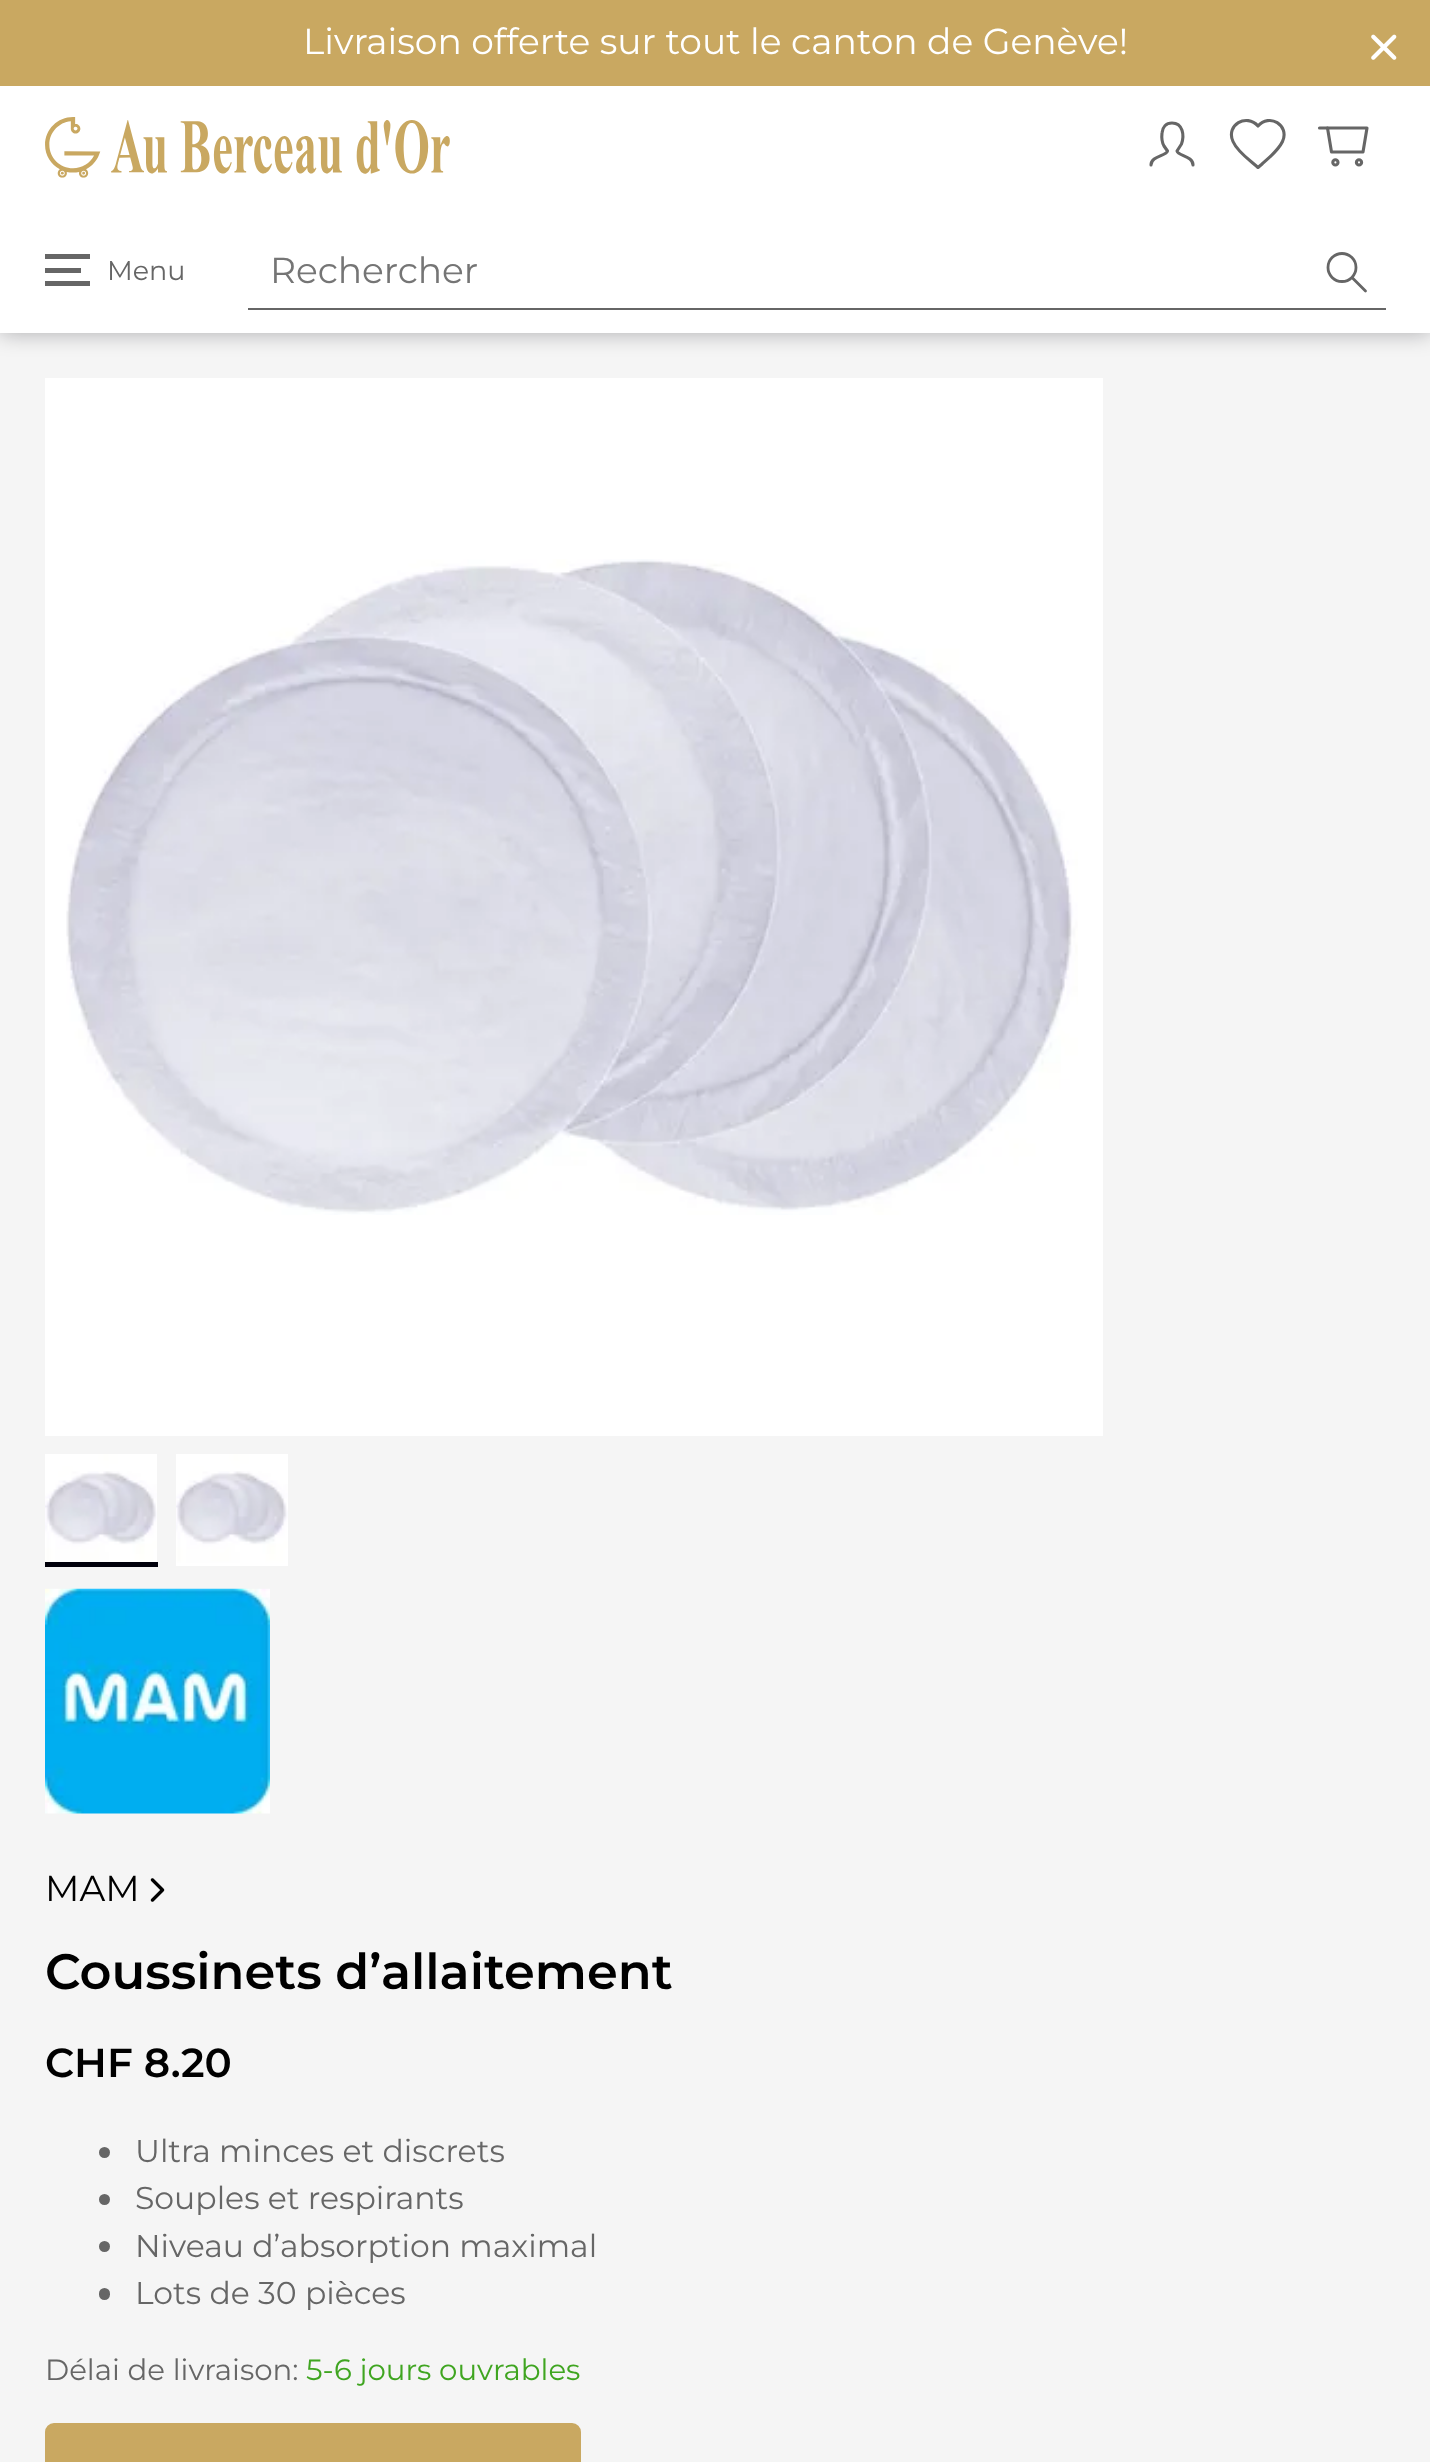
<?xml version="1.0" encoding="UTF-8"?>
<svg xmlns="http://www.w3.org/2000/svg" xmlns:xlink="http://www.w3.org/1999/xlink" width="1430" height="2462">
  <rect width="100%" height="100%" fill="#f5f5f5" />
  <rect width="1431" height="333" fill="#00000b" fill-opacity="0.3" filter="blur(11px)" />
  <rect y="86" width="1430" height="247" fill="#ffffff" />
  <rect width="1430" height="86" fill="#c9a861" />
  <image x="1371" y="34" width="26" height="26" xlink:href="image1.png" />
  <image x="45" y="117" width="405" height="61" xlink:href="image2.png" />
  <path d="M 1151 165 c 0 -9 15.5 -9 16.5 -14 l -3.5 -5 c -2 -3.5 -2.5 -8.5 -2 -13 c 0.5 -6 4 -10 10 -10 c 11 0 12.5 12.5 9.5 21 l -4.5 7 c 1 5 16 5 16 14" fill="none" stroke="#666666" stroke-width="3.1" stroke-linecap="round" stroke-linejoin="round" />
  <path d="M 1258 167.5 c -8.5 -7.5 -20.5 -15.5 -25 -26 c -7.5 -16.5 13.5 -28.5 25 -15.5 c 11 -13 32 -1 24.5 15.5 c -4.5 9.5 -13.5 16 -21 23 z" fill="none" stroke="#666666" stroke-width="3.1" stroke-linecap="round" stroke-linejoin="round" />
  <path d="M 1327.5 128 h 39.5 l -4 24 h -31.5 z" fill="none" stroke="#666666" stroke-width="3.1" stroke-linecap="round" stroke-linejoin="round" />
  <path d="M 1327.5 128 h -8" fill="none" stroke="#666666" stroke-width="3.1" stroke-linecap="round" stroke-linejoin="round" />
  <circle cx="1335.4" cy="162.4" r="2.6" fill="none" stroke="#666666" stroke-width="3.1" />
  <circle cx="1359" cy="162.4" r="2.6" fill="none" stroke="#666666" stroke-width="3.1" />
  <rect x="45" y="254" width="45" height="5" fill="#666666" />
  <rect x="45" y="281" width="45" height="5" fill="#666666" />
  <rect x="45" y="268" width="36" height="5" fill="#666666" />
  <rect x="248" y="308" width="1138" height="2" fill="#666666" />
  <path d="M 1352.5 278 l 13 13" fill="none" stroke="#666666" stroke-width="2.8" stroke-linecap="round" stroke-linejoin="round" />
  <circle cx="1342" cy="267.5" r="14" fill="none" stroke="#666666" stroke-width="2.8" />
  <rect x="45" y="378" width="1058" height="1058" fill="#ffffff" />
  <image x="66" y="559" width="1012" height="656" xlink:href="image3.png" />
  <image x="45" y="1454" width="112" height="108" xlink:href="image4.png" />
  <rect x="45" y="1562" width="113" height="5" fill="#00000b" />
  <image x="176" y="1454" width="112" height="112" xlink:href="image5.png" />
  <image x="45" y="1588" width="225" height="226" xlink:href="image6.png" />
  <image x="150" y="1878" width="15" height="24" xlink:href="image7.png" />
  <circle cx="104.5" cy="2152.5" r="5.5" fill="#666666" />
  <circle cx="104.5" cy="2199.5" r="5.5" fill="#666666" />
  <circle cx="104.5" cy="2246.5" r="5.5" fill="#666666" />
  <rect x="99" y="2288" width="11" height="12" rx="5.5" fill="#666666" />
  <rect x="46" y="2424" width="534" height="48" rx="8" fill="#c9a861" stroke="#c9a861" stroke-width="2" />
  <text x="303" y="54" style="font-family: Montserrat; font-size: 36px; fill: #ffffff">Livraison offerte sur tout le canton de Genève!</text>
  <text x="107" y="280" style="font-family: Montserrat; font-size: 27px; fill: #666666">Menu</text>
  <text x="270" y="283" style="font-family: Montserrat; font-size: 36px; fill: #757575">Rechercher</text>
  <text x="45" y="1901" style="font-family: Montserrat; font-size: 36px; fill: #000000">MAM</text>
  <text x="45" y="1989" style="font-family: Montserrat; font-size: 49.5px; font-weight: 600; fill: #000000">Coussinets d’allaitement</text>
  <text x="45" y="2077" style="font-family: Montserrat; font-size: 40.5px; font-weight: 600; fill: #000000">CHF 8.20</text>
  <text x="135" y="2162" style="font-family: Montserrat; font-size: 31.5px; fill: #666666">Ultra minces et discrets</text>
  <text x="135" y="2209" style="font-family: Montserrat; font-size: 31.5px; fill: #666666">Souples et respirants</text>
  <text x="135" y="2257" style="font-family: Montserrat; font-size: 31.5px; fill: #666666">Niveau d’absorption maximal</text>
  <text x="135" y="2304" style="font-family: Montserrat; font-size: 31.5px; fill: #666666">Lots de 30 pièces</text>
  <text x="45" y="2380" style="font-family: Montserrat; font-size: 29.25px; fill: #666666">Délai de livraison:</text>
  <text x="306" y="2380" style="font-family: Montserrat; font-size: 29.25px; fill: #3fa520">5-6 jours ouvrables</text>
</svg>
